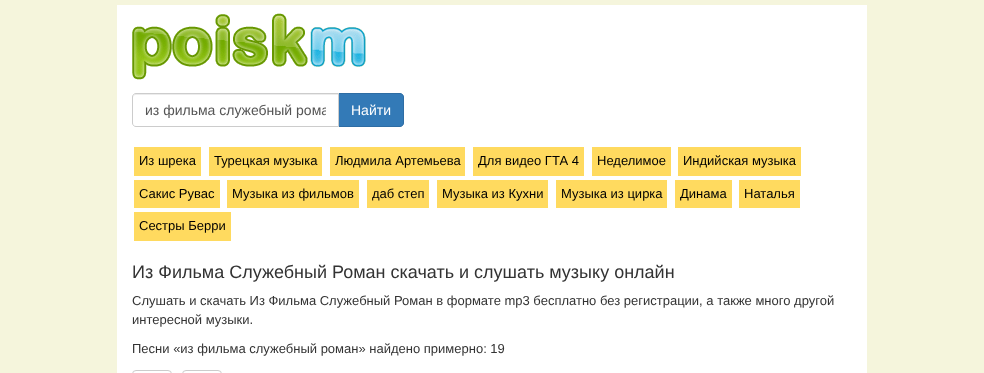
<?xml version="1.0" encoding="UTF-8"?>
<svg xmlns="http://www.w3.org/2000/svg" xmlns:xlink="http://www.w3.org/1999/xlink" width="984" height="373">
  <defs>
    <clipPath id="clip1"><rect x="145" y="102" width="181" height="16" /></clipPath>
  </defs>
  <rect width="100%" height="100%" fill="#f5f5dc" />
  <rect x="117" y="5" width="750" height="368" fill="#ffffff" />
  <image x="132" y="13" width="234" height="67" xlink:href="image1.png" />
  <path d="M 338.5 93.5 h 61.5 c 2 0 3.5 1.5 3.5 3.5 v 26 c 0 2 -1.5 3.5 -3.5 3.5 h -61.5 z" fill="#337ab7" stroke="#2e6da4" />
  <path d="M 136 93 h 203 v 34 h -203 c -2 0 -4 -2 -4 -4 v -26 c 0 -2 2 -4 4 -4 z" fill="#ffffff" />
  <path d="M 136 95 h 202 v -1 h -203 c -2 1 -2 2 -2 4 c 0 -2 1 -3 3 -3 z" fill="#ececec" />
  <path d="M 136 93.5 h 202.5 v 33 h -202.5 c -2 0 -3.5 -1.5 -3.5 -3.5 v -26 c 0 -2 1.5 -3.5 3.5 -3.5 z" fill="none" stroke="#cccccc" />
  <rect x="134" y="147" width="67" height="29" fill="#ffda5f" />
  <rect x="209" y="147" width="113" height="29" fill="#ffda5f" />
  <rect x="330" y="147" width="135" height="29" fill="#ffda5f" />
  <rect x="473" y="147" width="111" height="29" fill="#ffda5f" />
  <rect x="592" y="147" width="79" height="29" fill="#ffda5f" />
  <rect x="678" y="147" width="123" height="29" fill="#ffda5f" />
  <rect x="134" y="180" width="86" height="28" fill="#ffda5f" />
  <rect x="227" y="180" width="132" height="28" fill="#ffda5f" />
  <rect x="367" y="180" width="62" height="28" fill="#ffda5f" />
  <rect x="437" y="180" width="111" height="28" fill="#ffda5f" />
  <rect x="556" y="180" width="111" height="28" fill="#ffda5f" />
  <rect x="675" y="180" width="57" height="28" fill="#ffda5f" />
  <rect x="739" y="180" width="61" height="28" fill="#ffda5f" />
  <rect x="134" y="212" width="97" height="29" fill="#ffda5f" />
  <rect x="132.5" y="370.5" width="39" height="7" rx="3.5" fill="none" stroke="#cccccc" />
  <rect x="182.5" y="370.5" width="39" height="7" rx="3.5" fill="none" stroke="#cccccc" />
  <g clip-path="url(#clip1)">
    <text x="145" y="115" style="font-family: Liberation Sans; font-size: 14px; fill: #555555">из фильма служебный рома</text>
  </g>
  <text x="351" y="115" style="font-family: Liberation Sans; font-size: 14px; fill: #ffffff">Найти</text>
  <text x="139" y="165" style="font-family: Liberation Sans; font-size: 13px; fill: #000000">Из шрека</text>
  <text x="214" y="165" style="font-family: Liberation Sans; font-size: 13px; fill: #000000">Турецкая музыка</text>
  <text x="335" y="165" style="font-family: Liberation Sans; font-size: 13px; fill: #000000">Людмила Артемьева</text>
  <text x="478" y="165" style="font-family: Liberation Sans; font-size: 13px; fill: #000000">Для видео ГТА 4</text>
  <text x="597" y="165" style="font-family: Liberation Sans; font-size: 13px; fill: #000000">Неделимое</text>
  <text x="683" y="165" style="font-family: Liberation Sans; font-size: 13px; fill: #000000">Индийская музыка</text>
  <text x="139" y="198" style="font-family: Liberation Sans; font-size: 13px; fill: #000000">Сакис Рувас</text>
  <text x="232" y="198" style="font-family: Liberation Sans; font-size: 13px; fill: #000000">Музыка из фильмов</text>
  <text x="372" y="198" style="font-family: Liberation Sans; font-size: 13px; fill: #000000">даб степ</text>
  <text x="442" y="198" style="font-family: Liberation Sans; font-size: 13px; fill: #000000">Музыка из Кухни</text>
  <text x="561" y="198" style="font-family: Liberation Sans; font-size: 13px; fill: #000000">Музыка из цирка</text>
  <text x="680" y="198" style="font-family: Liberation Sans; font-size: 13px; fill: #000000">Динама</text>
  <text x="744" y="198" style="font-family: Liberation Sans; font-size: 13px; fill: #000000">Наталья</text>
  <text x="139" y="230" style="font-family: Liberation Sans; font-size: 13px; fill: #000000">Сестры Берри</text>
  <text x="132" y="278" style="font-family: Liberation Sans; font-size: 18px; fill: #333333">Из Фильма Служебный Роман скачать и слушать музыку онлайн</text>
  <text x="132" y="305" style="font-family: Liberation Sans; font-size: 13px; fill: #333333">Cлушать и скачать Из Фильма Служебный Роман в формате mp3 бесплатно без регистрации, а также много другой</text>
  <text x="132" y="324" style="font-family: Liberation Sans; font-size: 13px; fill: #333333">интересной музыки.</text>
  <text x="132" y="353" style="font-family: Liberation Sans; font-size: 13px; fill: #333333">Песни «из фильма служебный роман» найдено примерно: 19</text>
</svg>
